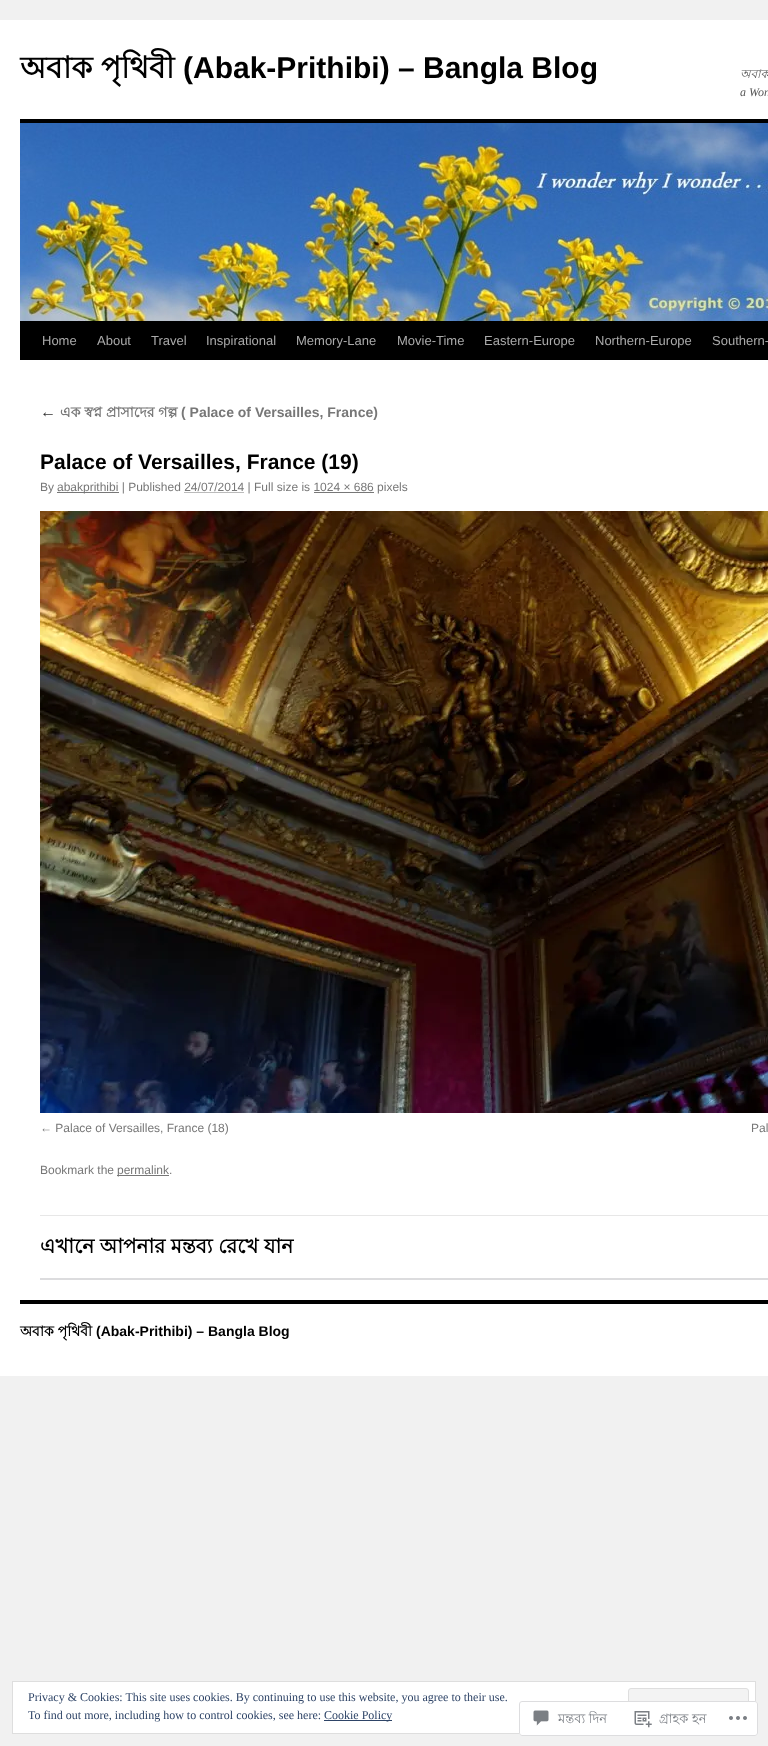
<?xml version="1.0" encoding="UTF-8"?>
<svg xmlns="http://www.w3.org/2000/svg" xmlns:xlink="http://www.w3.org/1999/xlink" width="768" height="1746">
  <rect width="100%" height="100%" fill="#f1f1f1" />
  <rect y="20" width="768" height="1356" fill="#ffffff" />
  <rect x="20" y="119" width="748" height="4" fill="#000000" />
  <rect x="20" y="321" width="748" height="39" fill="#000000" />
  <image x="20" y="123" width="748" height="198" xlink:href="image1.png" />
  <rect x="57" y="492" width="62" height="1" fill="#777777" />
  <path d="M 184.5 492.5 h 60" fill="none" stroke="#777777" stroke-dasharray="1 1" />
  <rect x="314" y="492" width="60" height="1" fill="#777777" />
  <image x="40" y="511" width="728" height="602" xlink:href="image2.png" />
  <rect x="117" y="1175" width="52" height="1" fill="#777777" />
  <rect x="40" y="1215" width="728" height="1" fill="#e7e7e7" />
  <rect x="40" y="1278" width="728" height="2" fill="#dcdcde" />
  <rect x="20" y="1300" width="748" height="4" fill="#000000" />
  <rect x="12.5" y="1681.5" width="743" height="52" fill="#ffffff" stroke="#dedede" />
  <rect x="628.5" y="1688.5" width="120" height="38" rx="2.5" fill="#f3f3f3" stroke="#dedede" />
  <rect x="324" y="1720" width="68" height="1" fill="#2e4467" />
  <rect x="519" y="1701" width="239" height="35" rx="3" fill="#ffffff" fill-opacity="0.98" />
  <rect x="519.5" y="1701.5" width="238" height="34" rx="2.5" fill="none" stroke="#dcdcde" stroke-opacity="0.98" />
  <image x="533" y="1710" width="16" height="16" xlink:href="image3.png" />
  <image x="634" y="1711" width="18" height="17" xlink:href="image4.png" />
  <image x="729" y="1716" width="18" height="4" xlink:href="image5.png" />
  <text x="20" y="78" style="font-family: Lohit Bengali; font-size: 30px; font-weight: bold; fill: #000000">অবাক পৃথিবী</text>
  <text x="183" y="78" style="font-family: Liberation Sans; font-size: 30px; font-weight: bold; fill: #000000">(Abak-Prithibi) – Bangla Blog</text>
  <text x="740" y="78" style="font-family: Lohit Bengali; font-size: 12px; font-style: italic; fill: #595959">অবাক</text>
  <text x="740" y="96" style="font-family: Liberation Serif; font-size: 12px; font-style: italic; fill: #595959">a Won</text>
  <text x="42" y="345" style="font-family: Liberation Sans; font-size: 13px; fill: #aaaaaa">Home</text>
  <text x="97" y="345" style="font-family: Liberation Sans; font-size: 13px; fill: #aaaaaa">About</text>
  <text x="151" y="345" style="font-family: Liberation Sans; font-size: 13px; fill: #aaaaaa">Travel</text>
  <text x="206" y="345" style="font-family: Liberation Sans; font-size: 13px; fill: #aaaaaa">Inspirational</text>
  <text x="296" y="345" style="font-family: Liberation Sans; font-size: 13px; fill: #aaaaaa">Memory-Lane</text>
  <text x="397" y="345" style="font-family: Liberation Sans; font-size: 13px; fill: #aaaaaa">Movie-Time</text>
  <text x="484" y="345" style="font-family: Liberation Sans; font-size: 13px; fill: #aaaaaa">Eastern-Europe</text>
  <text x="595" y="345" style="font-family: Liberation Sans; font-size: 13px; fill: #aaaaaa">Northern-Europe</text>
  <text x="712" y="345" style="font-family: Liberation Sans; font-size: 13px; fill: #aaaaaa">Southern-</text>
  <text x="40" y="417" style="font-family: Liberation Serif; font-size: 16px; font-style: italic; fill: #333333">←</text>
  <text x="60" y="417" style="font-family: Lohit Bengali; font-size: 14px; font-weight: bold; fill: #777777">এক স্বপ্ন প্রাসাদের গল্প</text>
  <text x="181" y="417" style="font-family: Liberation Sans; font-size: 14px; font-weight: bold; fill: #777777">( Palace of Versailles, France)</text>
  <text x="40" y="469" style="font-family: Liberation Sans; font-size: 21px; font-weight: bold; fill: #000000">Palace of Versailles, France (19)</text>
  <text x="40" y="491" style="font-family: Liberation Sans; font-size: 12px; fill: #777777">By</text>
  <text x="57" y="491" style="font-family: Liberation Sans; font-size: 12px; fill: #777777">abakprithibi | Published 24/07/2014 | Full size is 1024 × 686 pixels</text>
  <text x="40" y="1132" style="font-family: Liberation Sans; font-size: 12px; fill: #777777">← Palace of Versailles, France (18)</text>
  <text x="751" y="1132" style="font-family: Liberation Sans; font-size: 12px; fill: #777777">Pal</text>
  <text x="40" y="1174" style="font-family: Liberation Sans; font-size: 12px; fill: #777777">Bookmark the</text>
  <text x="117" y="1174" style="font-family: Liberation Sans; font-size: 12px; fill: #777777">permalink.</text>
  <text x="40" y="1253" style="font-family: Lohit Bengali; font-size: 20px; font-weight: bold; fill: #000000">এখানে আপনার মন্তব্য রেখে যান</text>
  <text x="20" y="1336" style="font-family: Lohit Bengali; font-size: 14px; font-weight: bold; fill: #000000">অবাক পৃথিবী</text>
  <text x="96" y="1336" style="font-family: Liberation Sans; font-size: 14px; font-weight: bold; fill: #000000">(Abak-Prithibi) – Bangla Blog</text>
  <text x="28" y="1701" style="font-family: Liberation Serif; font-size: 12px; fill: #2e4467">Privacy &amp; Cookies: This site uses cookies. By continuing to use this website, you agree to their use.</text>
  <text x="28" y="1719" style="font-family: Liberation Serif; font-size: 12px; fill: #2e4467">To find out more, including how to control cookies, see here:</text>
  <text x="324" y="1719" style="font-family: Liberation Serif; font-size: 12px; fill: #2e4467">Cookie Policy</text>
  <text x="558" y="1723" style="font-family: Lohit Bengali; font-size: 13px; fill: #7b7f85">মন্তব্য দিন</text>
  <text x="659" y="1723" style="font-family: Lohit Bengali; font-size: 13px; fill: #7b7f85">গ্রাহক হন</text>
</svg>
